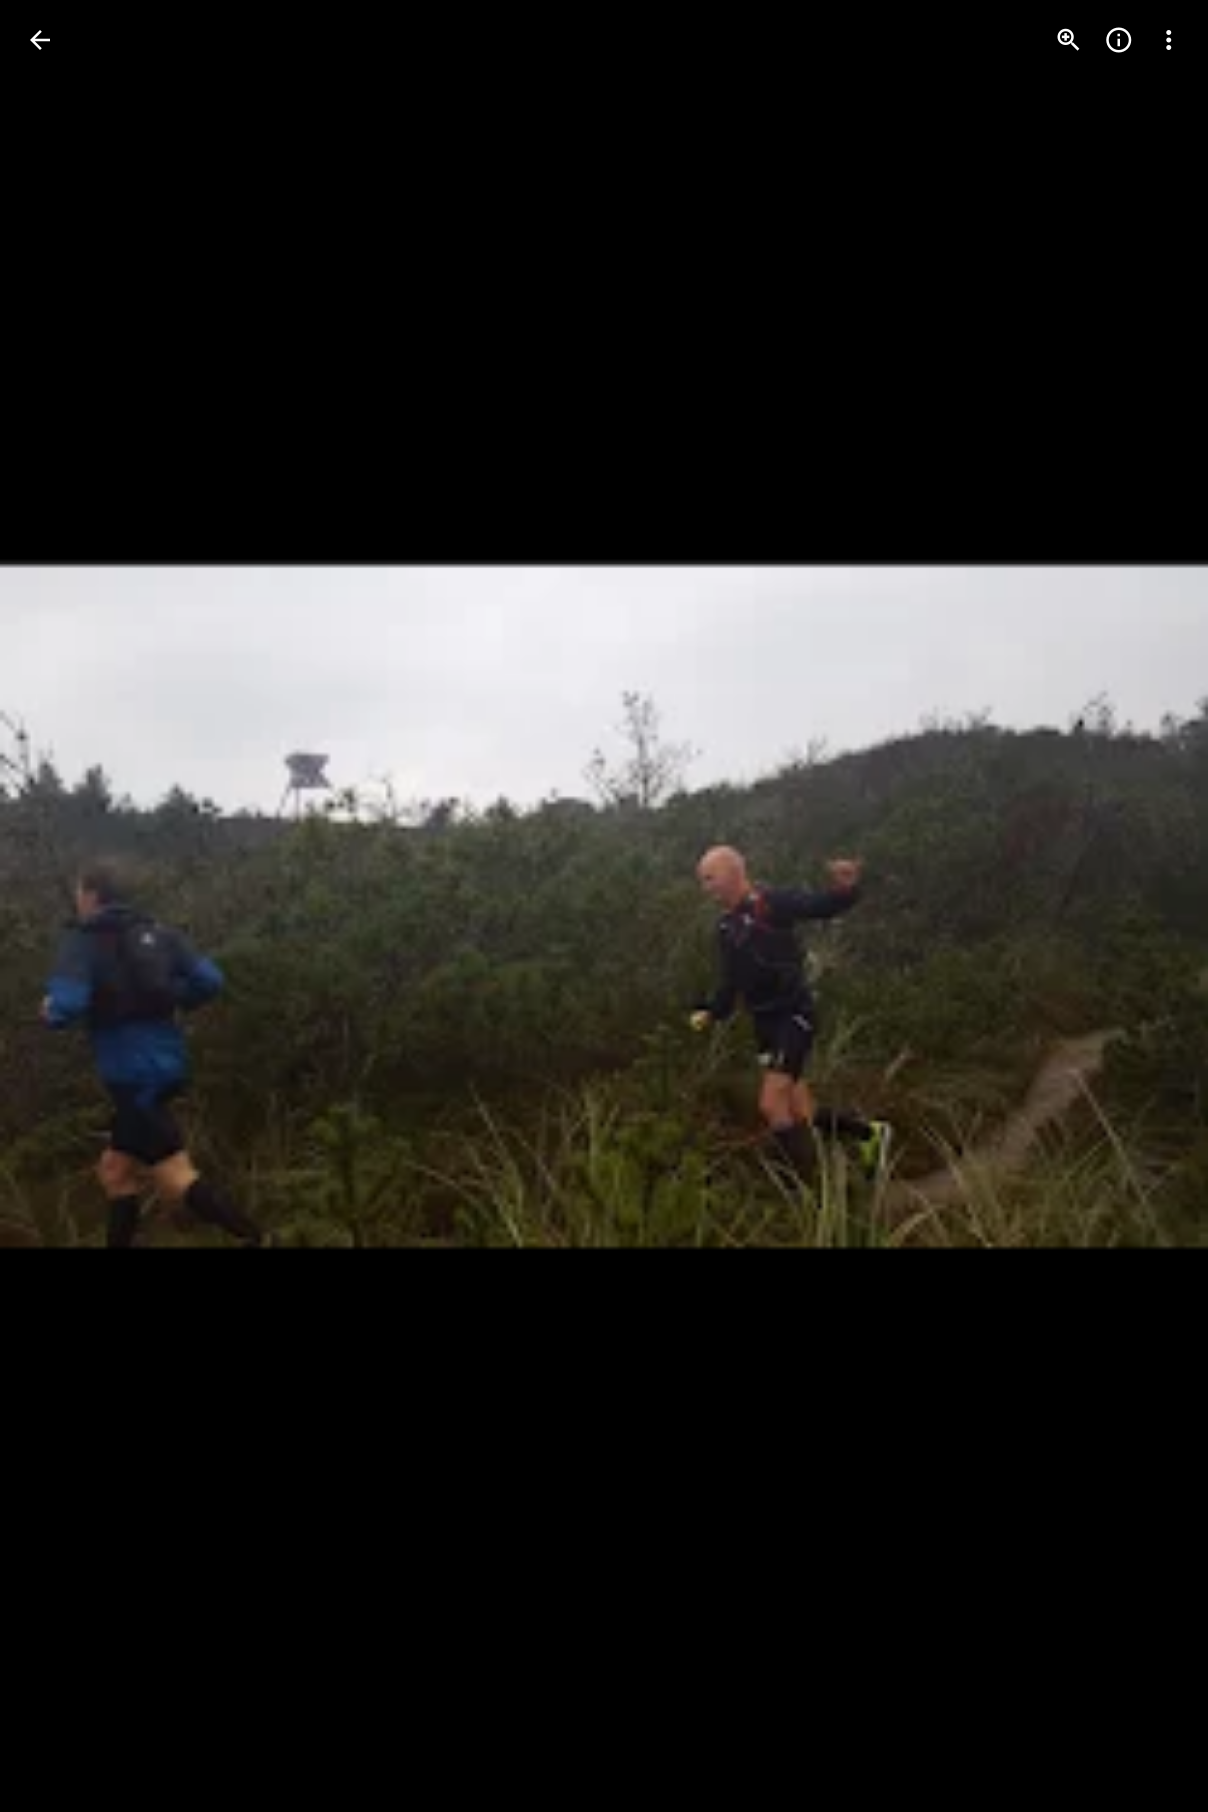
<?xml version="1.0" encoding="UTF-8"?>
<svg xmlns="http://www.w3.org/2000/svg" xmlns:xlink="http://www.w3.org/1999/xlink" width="1208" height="1812">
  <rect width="100%" height="100%" fill="#000000" />
  <image x="30" y="30" width="20" height="20" xlink:href="image1.png" />
  <image x="1057" y="28" width="23" height="23" xlink:href="image2.png" />
  <image x="1106" y="27" width="26" height="26" xlink:href="image3.png" />
  <image x="1166" y="30" width="6" height="20" xlink:href="image4.png" />
  <image x="0" y="559" width="1208" height="691" xlink:href="image5.png" />
</svg>
